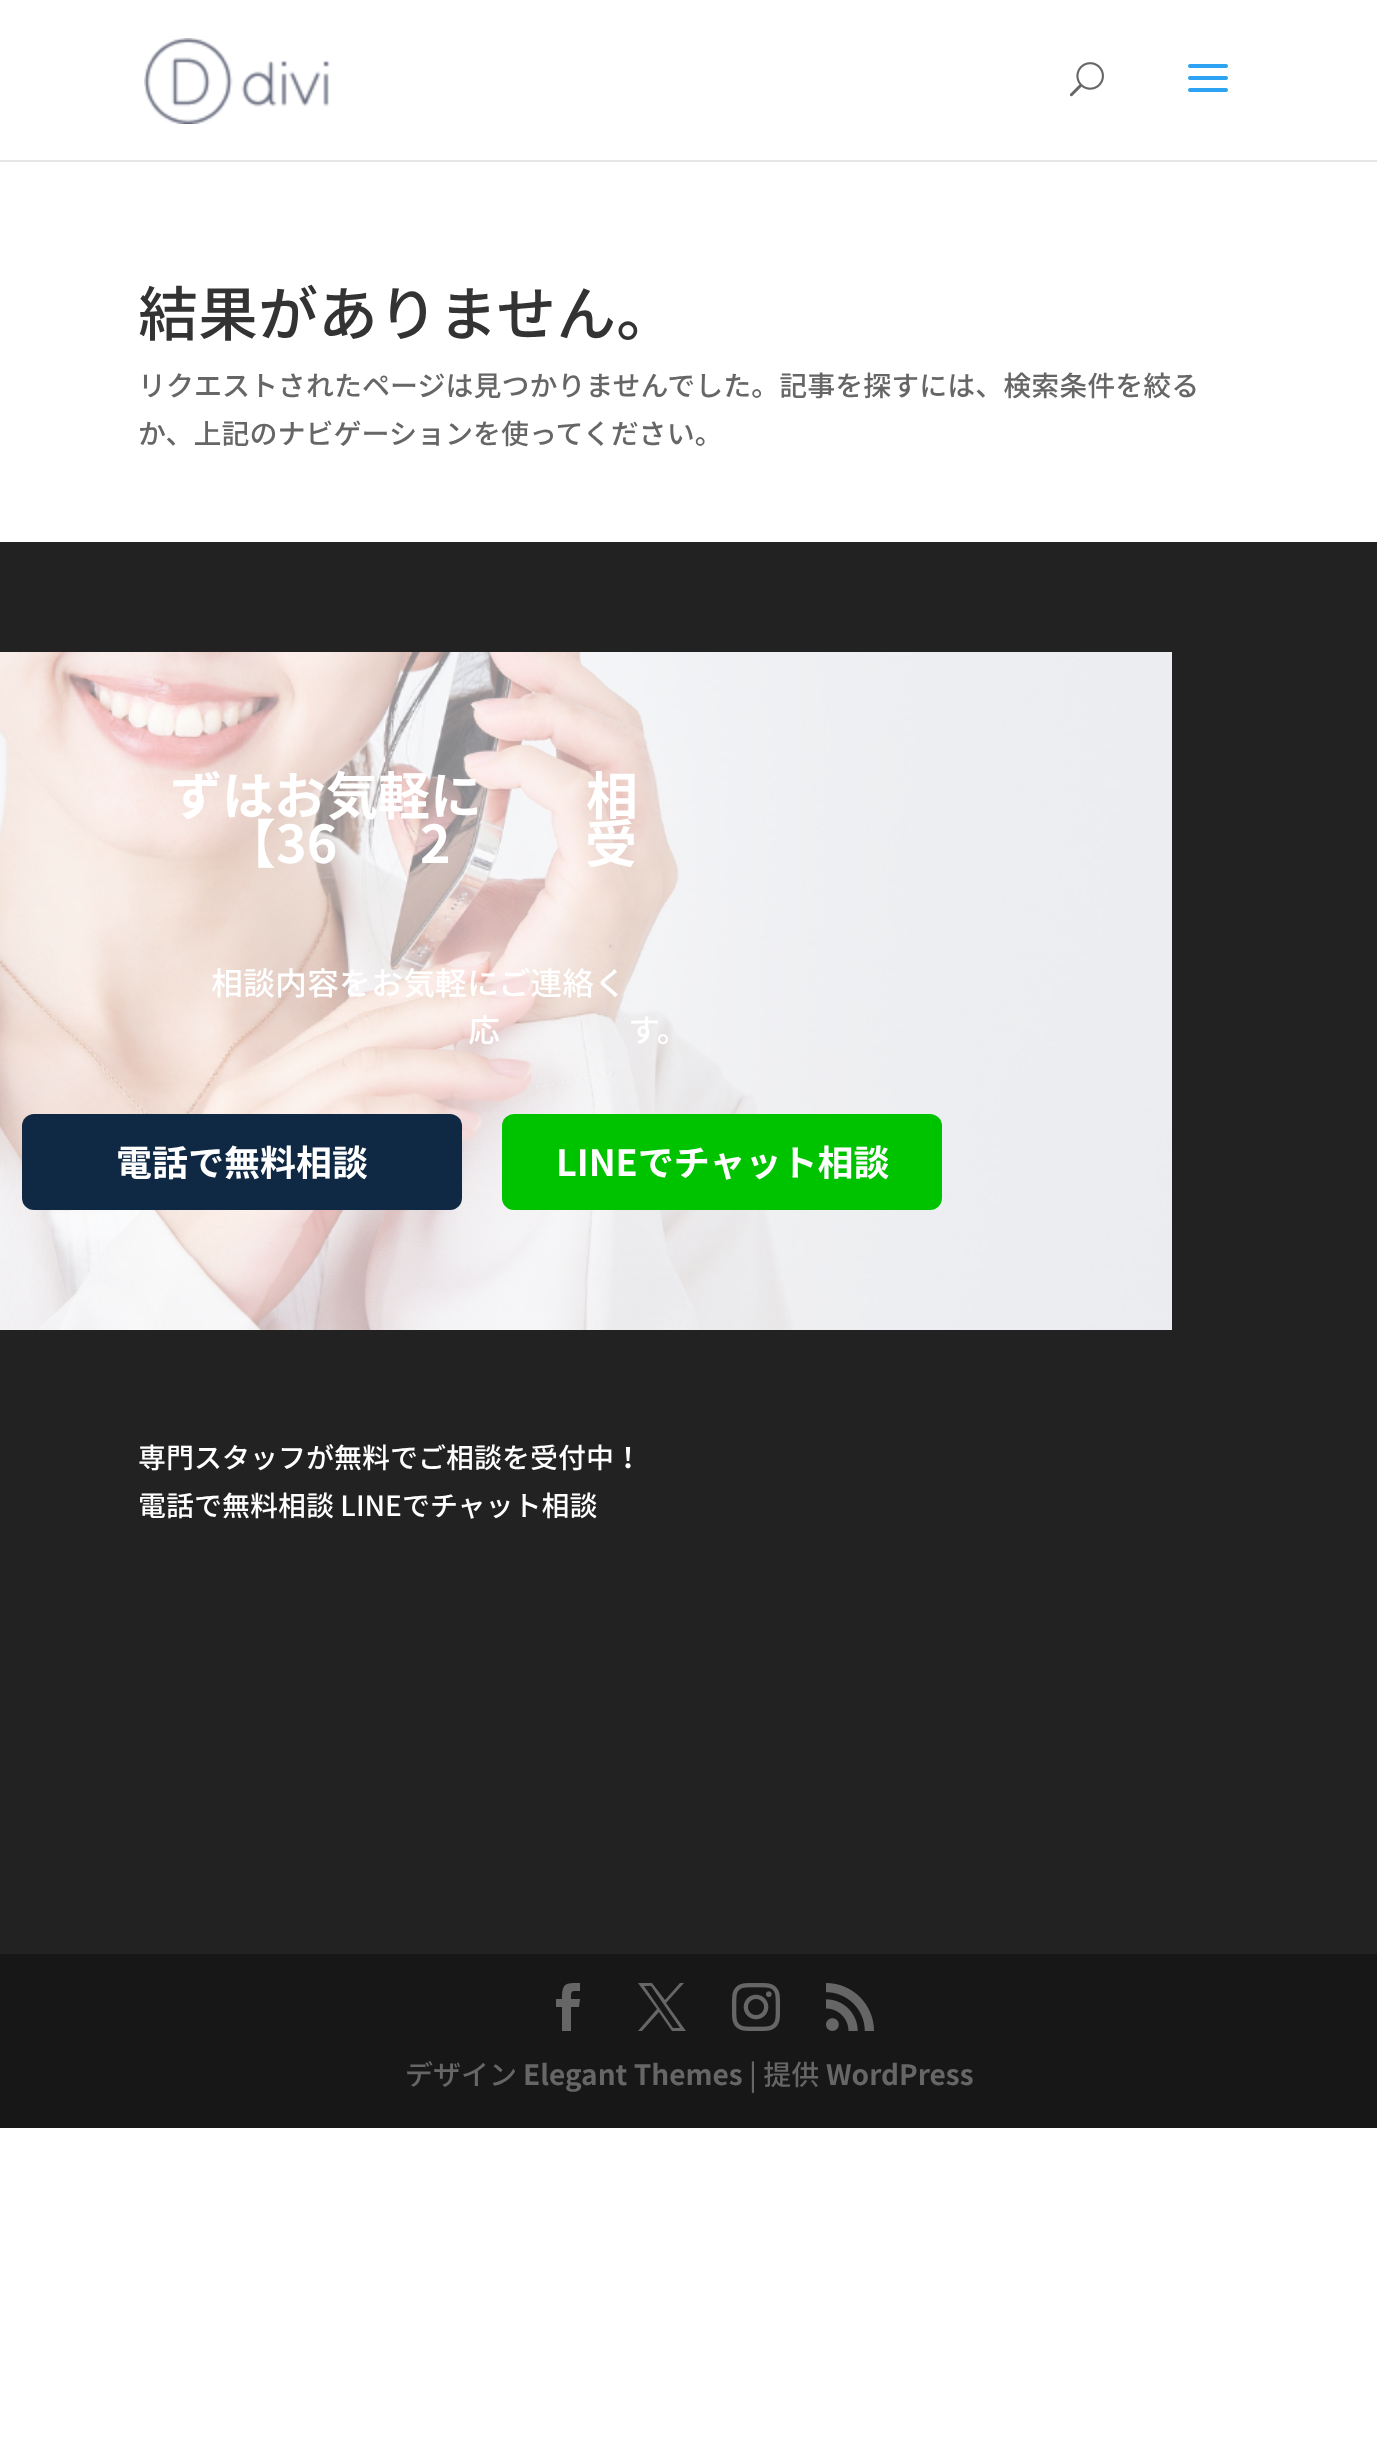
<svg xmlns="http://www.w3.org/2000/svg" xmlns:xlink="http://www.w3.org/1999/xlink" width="1377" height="2464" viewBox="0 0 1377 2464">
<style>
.cls-1{font:500 60px Noto Sans JP;fill:#333333}
.cls-2{font:500 28px Noto Sans JP;fill:#666666}
.cls-3{font:bold 52px Noto Sans JP;fill:#ffffff}
.cls-4{font:500 32px Noto Sans JP;fill:#ffffff}
.cls-5{font:bold 36px Noto Sans JP;fill:#ffffff}
.cls-6{font:500 28px Noto Sans JP;fill:#ffffff}
.cls-7{font:bold 28px Noto Sans JP;fill:#666666}
</style>
<rect width="100%" height="100%" fill="#ffffff"/>
<rect fill="#e6e6e6" x="0" y="160" width="1377" height="2"/>
<image xlink:href="image0.png" x="144" y="38" width="186" height="86"/>
<image xlink:href="image1.png" x="1069" y="62" width="35" height="35"/>
<image xlink:href="image2.png" x="1188" y="64" width="40" height="28"/>
<rect fill="#222222" x="0" y="542" width="1377" height="1412"/>
<image xlink:href="image3.png" x="0" y="652" width="1172" height="678"/>
<rect fill="#0f2944" x="22" y="1114" width="440" height="96" rx="12"/>
<rect fill="#00c300" x="502" y="1114" width="440" height="96" rx="12"/>
<rect fill="#171717" x="0" y="1954" width="1377" height="174"/>
<path fill="#666666" d="M562 2031H571V2007H579L580 1999H571C571 1990 571 1991 580 1991V1983C565 1983 562 1983 562 1999H556V2007H562Z"/>
<path fill="#666666" d="M638 1983L657 2009L638 2031H642L659 2012L672 2031H686L666 2003L684 1983H680L665 2000L652 1983ZM644 1986H651L680 2028H673Z"/>
<image xlink:href="image4.png" x="732" y="1983" width="48" height="48"/>
<image xlink:href="image5.png" x="826" y="1983" width="48" height="48"/>
<text class="cls-1" x="138" y="336">結果がありません。</text>
<text class="cls-2"><tspan x="138" y="396">リクエストされたページは見つかりませんでした。記事を探すには、検索条件を絞る</tspan><tspan x="138" y="444">か、上記のナビゲーションを使ってください。</tspan></text>
<text class="cls-3" x="170" y="815">ずはお気軽に</text>
<text class="cls-3" x="586" y="815">相</text>
<text class="cls-3" x="224" y="863">【36</text>
<text class="cls-3" x="420" y="863">2</text>
<text class="cls-3" x="585" y="863">受</text>
<text class="cls-4" x="211" y="995">相談内容をお気軽にご連絡く</text>
<text class="cls-4" x="468" y="1042">応</text>
<text class="cls-4" x="628" y="1042">す。</text>
<text class="cls-5" x="116" y="1176">電話で無料相談</text>
<text class="cls-5" x="556" y="1176">LINEでチャット相談</text>
<text class="cls-6"><tspan x="138" y="1468">専門スタッフが無料でご相談を受付中！</tspan><tspan x="138" y="1516">電話で無料相談 LINEでチャット相談</tspan></text>
<text class="cls-2" x="405" y="2085">デザイン</text>
<text class="cls-7" x="523" y="2085">Elegant Themes</text>
<text class="cls-2" x="749" y="2085">| 提供</text>
<text class="cls-7" x="826" y="2085">WordPress</text>
</svg>
